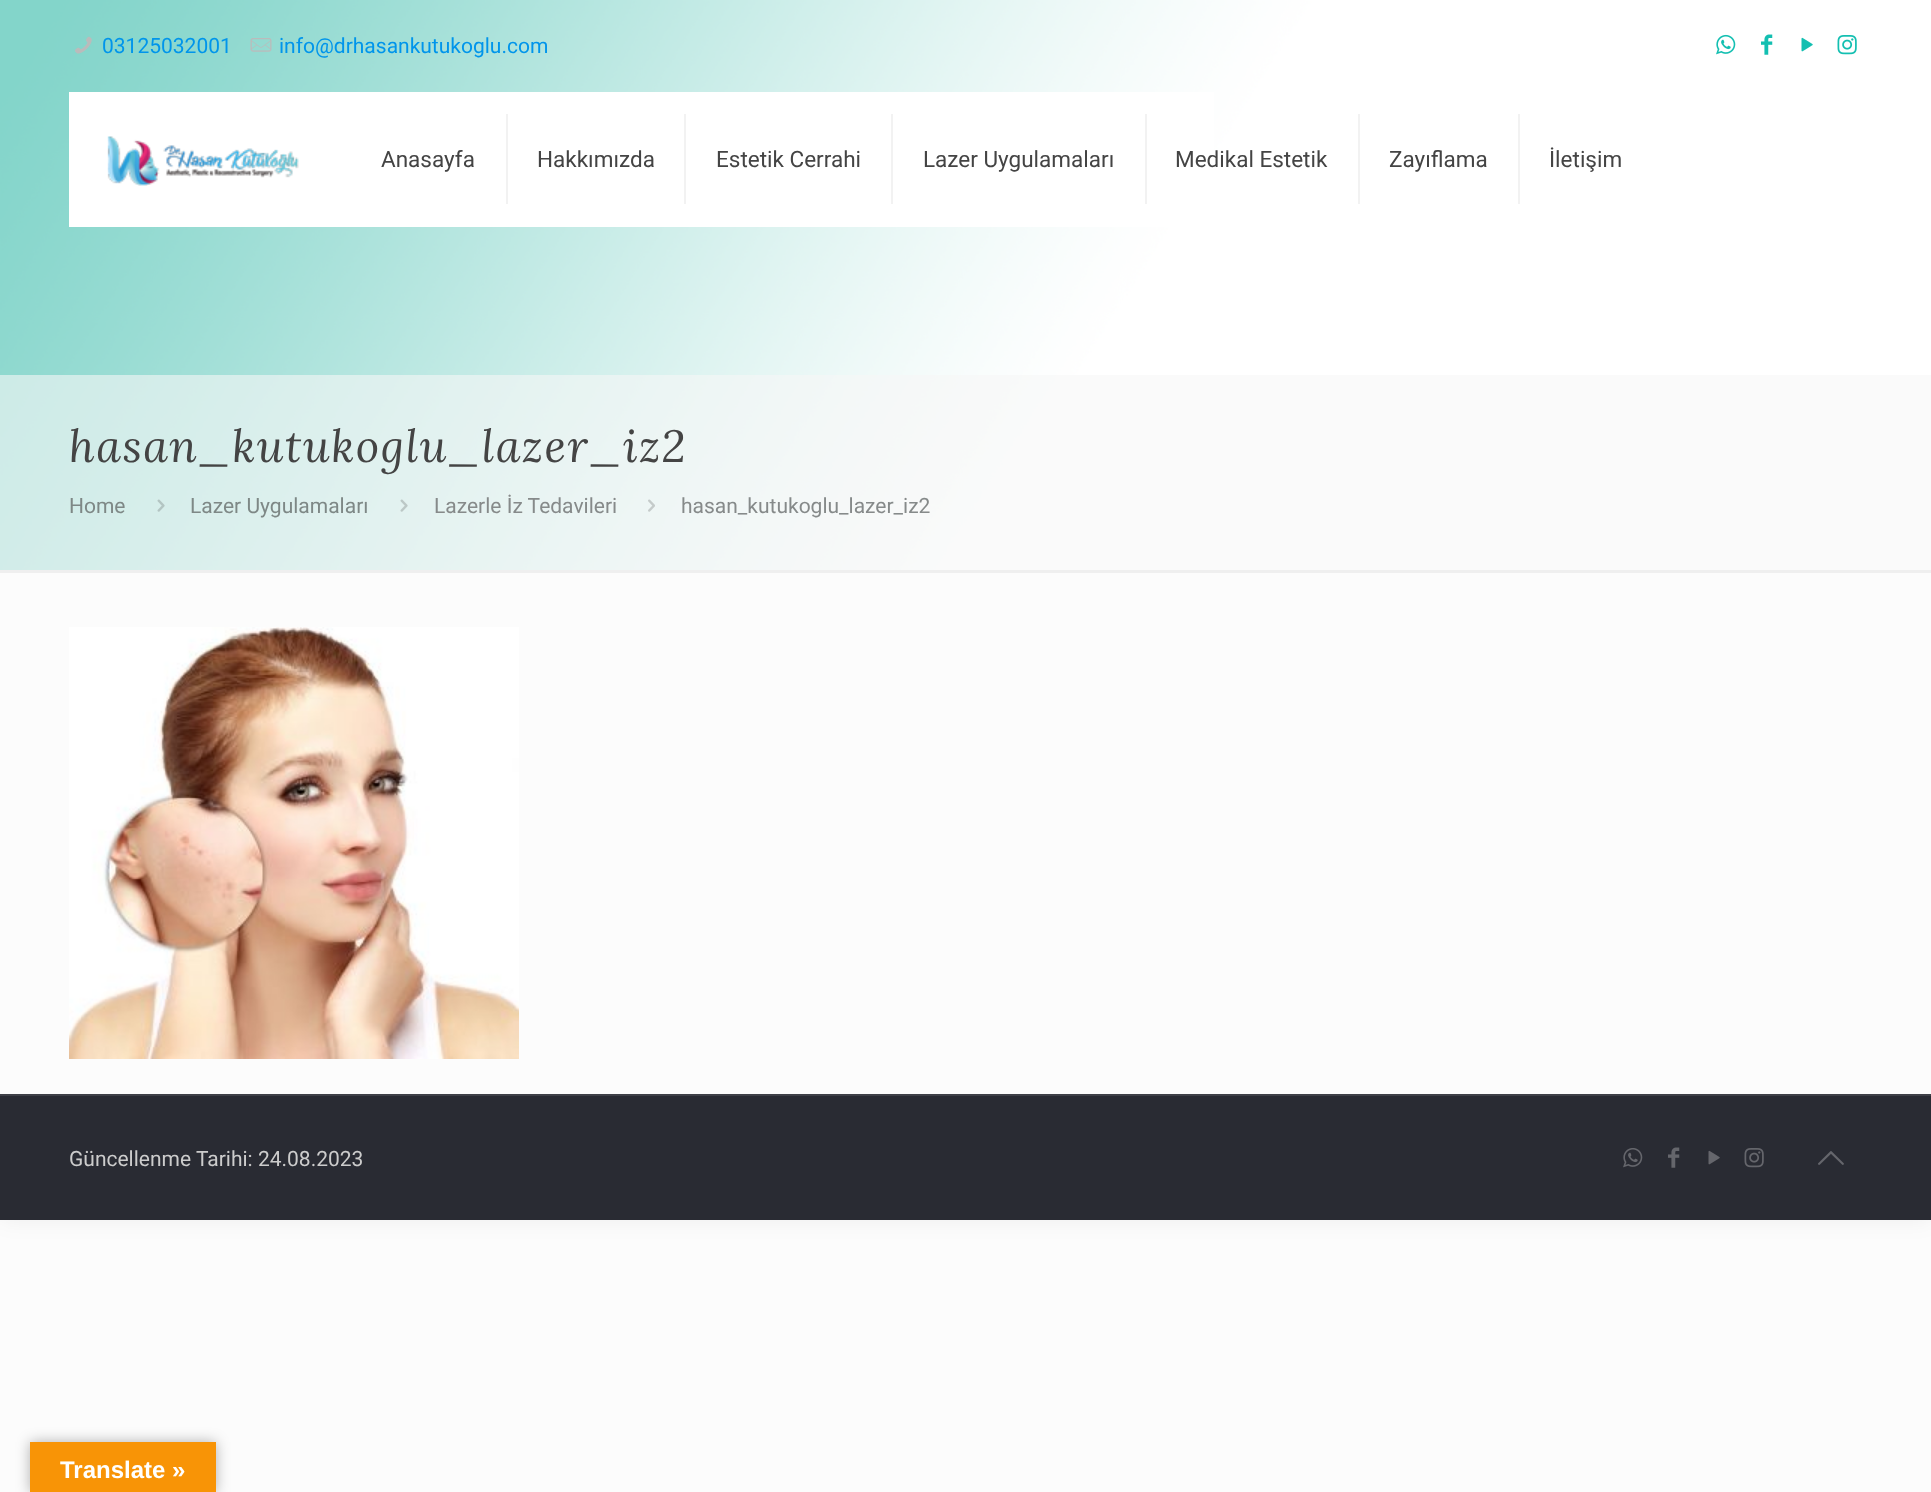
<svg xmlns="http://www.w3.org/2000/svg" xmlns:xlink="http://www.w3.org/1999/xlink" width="1931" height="1492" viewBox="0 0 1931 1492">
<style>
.cls-1{font:21px Roboto;fill:#0095eb}
.cls-2{font:22.5px Roboto;fill:#444444}
.cls-3{font:italic 45px Lora;letter-spacing:1.5px;fill:#444444}
.cls-4{font:21px Roboto;fill:#7e8886}
.cls-5{font:21px Roboto;fill:#868a8a}
.cls-6{font:21px Roboto;fill:#cccccc}
.cls-7{font:bold 24px Liberation Sans;fill:#ffffff}
</style>
<rect width="100%" height="100%" fill="#fcfcfc"/>
<rect fill="#000000" fill-opacity="0.06" filter="blur(11px)" x="0" y="0" width="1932" height="1220"/>
<rect fill="#fcfcfc" x="0" y="573" width="1931" height="521"/>
<image xlink:href="image0.png" x="0" y="0" width="1931" height="570"/>
<image xlink:href="image1.png" x="75" y="36" width="17" height="18"/>
<image xlink:href="image2.png" x="250" y="38" width="22" height="14"/>
<image xlink:href="image3.png" x="1716" y="34" width="20" height="21"/>
<image xlink:href="image4.png" x="1761" y="34" width="12" height="21"/>
<image xlink:href="image5.png" x="1801" y="37" width="12" height="15"/>
<image xlink:href="image6.png" x="1837" y="35" width="20" height="20"/>
<rect fill="#ffffff" x="69" y="92" width="1145" height="135"/>
<image xlink:href="image7.png" x="107" y="136" width="192" height="50"/>
<rect fill="#f2f2f2" x="506" y="114" width="2" height="90"/>
<rect fill="#f2f2f2" x="684" y="114" width="2" height="90"/>
<rect fill="#f2f2f2" x="891" y="114" width="2" height="90"/>
<rect fill="#f2f2f2" x="1145" y="114" width="2" height="90"/>
<rect fill="#f2f2f2" x="1358" y="114" width="2" height="90"/>
<rect fill="#f2f2f2" x="1518" y="114" width="2" height="90"/>
<rect fill="#f7f7f7" fill-opacity="0.6" x="0" y="375" width="1931" height="195"/>
<image xlink:href="image8.png" x="157" y="499" width="8" height="13"/>
<image xlink:href="image9.png" x="400" y="499" width="8" height="13"/>
<image xlink:href="image10.png" x="648" y="499" width="7" height="13"/>
<rect fill="#efefef" x="0" y="570" width="1931" height="3"/>
<image xlink:href="image11.png" x="69" y="627" width="450" height="432"/>
<rect fill="#292b33" x="0" y="1096" width="1931" height="124"/>
<rect fill="#3e4047" x="0" y="1094" width="1931" height="2"/>
<image xlink:href="image12.png" x="1623" y="1148" width="20" height="20"/>
<image xlink:href="image13.png" x="1668" y="1147" width="12" height="21"/>
<image xlink:href="image14.png" x="1708" y="1150" width="12" height="15"/>
<image xlink:href="image15.png" x="1744" y="1148" width="20" height="20"/>
<image xlink:href="image16.png" x="1818" y="1151" width="26" height="14"/>
<rect fill="#000000" fill-opacity="0.3" filter="blur(7px)" x="30" y="1442" width="186" height="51"/>
<rect fill="#f89406" x="30" y="1442" width="186" height="50"/>
<text class="cls-1" x="102" y="53">03125032001</text>
<text class="cls-1" x="279" y="53">info@drhasankutukoglu.com</text>
<text class="cls-2" x="381" y="167">Anasayfa</text>
<text class="cls-2" x="537" y="167">Hakkımızda</text>
<text class="cls-2" x="716" y="167">Estetik Cerrahi</text>
<text class="cls-2" x="923" y="167">Lazer Uygulamaları</text>
<text class="cls-2" x="1175" y="167">Medikal Estetik</text>
<text class="cls-2" x="1389" y="167">Zayıflama</text>
<text class="cls-2" x="1549" y="167">İletişim</text>
<text class="cls-3" x="69" y="462">hasan_kutukoglu_lazer_iz2</text>
<text class="cls-4" x="69" y="513">Home</text>
<text class="cls-4" x="190" y="513">Lazer Uygulamaları</text>
<text class="cls-5" x="434" y="513">Lazerle İz Tedavileri</text>
<text class="cls-5" x="681" y="513">hasan_kutukoglu_lazer_iz2</text>
<text class="cls-6" x="69" y="1166">Güncellenme Tarihi: 24.08.2023</text>
<text class="cls-7" x="60" y="1478">Translate »</text>
</svg>
